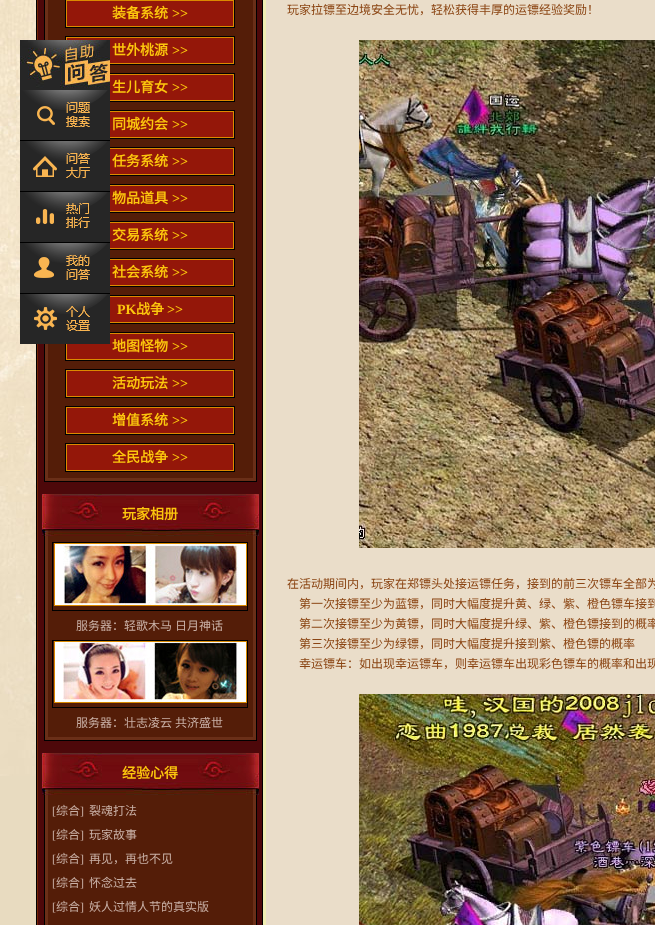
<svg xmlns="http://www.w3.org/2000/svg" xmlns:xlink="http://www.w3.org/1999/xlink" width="655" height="925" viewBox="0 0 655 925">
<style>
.cls-1{font:bold 14px Noto Sans CJK SC;fill:#fcc70d}
.cls-2{font:bold 14px Liberation Serif;fill:#fcc70d}
.cls-3{font:12px Noto Sans CJK SC;fill:#c9b0a6}
.cls-4{font:12px Liberation Serif;fill:#c9b0a6}
.cls-5{font:12px Noto Sans CJK SC;fill:#8b4513}
</style>
<rect width="100%" height="100%" fill="#e8dbc0"/>
<image xlink:href="image0.png" x="0" y="0" width="36" height="776"/>
<rect fill="#742405" x="37" y="0" width="1" height="925"/>
<rect fill="none" stroke="#000000" x="36.5" y="-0.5" width="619" height="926"/>
<rect fill="#4d080a" x="38" y="0" width="224" height="925"/>
<rect fill="#6a2f18" x="45" y="0" width="211" height="481"/>
<rect fill="#000000" x="256" y="0" width="1" height="482"/>
<rect fill="#000000" x="44" y="481" width="213" height="1"/>
<rect fill="#000000" x="44" y="0" width="1" height="482"/>
<rect fill="#541d08" x="48" y="0" width="205" height="478"/>
<rect fill="#dc8a00" stroke="#000000" x="65.5" y="-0.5" width="169" height="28"/>
<rect fill="#941709" x="67" y="1" width="166" height="25"/>
<rect fill="#dc8a00" stroke="#000000" x="65.5" y="36.5" width="169" height="28"/>
<rect fill="#941709" x="67" y="38" width="166" height="25"/>
<rect fill="#dc8a00" x="110" y="74" width="124" height="27"/>
<rect fill="none" stroke="#000000" x="65.5" y="73.5" width="169" height="28"/>
<rect fill="#941709" x="110" y="75" width="123" height="25"/>
<rect fill="#dc8a00" x="110" y="111" width="124" height="27"/>
<rect fill="none" stroke="#000000" x="65.5" y="110.5" width="169" height="28"/>
<rect fill="#941709" x="110" y="112" width="123" height="25"/>
<rect fill="#dc8a00" x="110" y="148" width="124" height="27"/>
<rect fill="none" stroke="#000000" x="65.5" y="147.5" width="169" height="28"/>
<rect fill="#941709" x="110" y="149" width="123" height="25"/>
<rect fill="#dc8a00" x="110" y="185" width="124" height="27"/>
<rect fill="none" stroke="#000000" x="65.5" y="184.5" width="169" height="28"/>
<rect fill="#941709" x="110" y="186" width="123" height="25"/>
<rect fill="#dc8a00" x="110" y="222" width="124" height="27"/>
<rect fill="none" stroke="#000000" x="65.5" y="221.5" width="169" height="28"/>
<rect fill="#941709" x="110" y="223" width="123" height="25"/>
<rect fill="#dc8a00" x="110" y="259" width="124" height="27"/>
<rect fill="none" stroke="#000000" x="65.5" y="258.5" width="169" height="28"/>
<rect fill="#941709" x="110" y="260" width="123" height="25"/>
<rect fill="#dc8a00" x="110" y="296" width="124" height="27"/>
<rect fill="none" stroke="#000000" x="65.5" y="295.5" width="169" height="28"/>
<rect fill="#941709" x="110" y="297" width="123" height="25"/>
<rect fill="#dc8a00" stroke="#000000" x="65.5" y="332.5" width="169" height="28"/>
<rect fill="#941709" x="67" y="334" width="166" height="25"/>
<rect fill="#dc8a00" stroke="#000000" x="65.5" y="369.5" width="169" height="28"/>
<rect fill="#941709" x="67" y="371" width="166" height="25"/>
<rect fill="#dc8a00" stroke="#000000" x="65.5" y="406.5" width="169" height="28"/>
<rect fill="#941709" x="67" y="408" width="166" height="25"/>
<rect fill="#dc8a00" stroke="#000000" x="65.5" y="443.5" width="169" height="28"/>
<rect fill="#941709" x="67" y="445" width="166" height="25"/>
<image xlink:href="image1.png" x="42" y="494" width="217" height="42"/>
<rect fill="#6a2f18" x="45" y="536" width="211" height="204"/>
<rect fill="#000000" x="256" y="536" width="1" height="205"/>
<rect fill="#000000" x="44" y="740" width="213" height="1"/>
<rect fill="#000000" x="44" y="536" width="1" height="205"/>
<rect fill="#541d08" x="48" y="536" width="205" height="201"/>
<rect fill="none" stroke="#000000" x="52.5" y="542.5" width="195" height="68"/>
<rect fill="none" stroke="#d98900" x="54.5" y="543.5" width="192" height="62"/>
<image xlink:href="image2.png" x="55" y="544" width="191" height="61"/>
<rect fill="none" stroke="#000000" x="52.5" y="640.5" width="195" height="67"/>
<rect fill="none" stroke="#d98900" x="54.5" y="641.5" width="192" height="61"/>
<image xlink:href="image3.png" x="55" y="642" width="191" height="60"/>
<image xlink:href="image1.png" x="42" y="753" width="217" height="42"/>
<rect fill="#6a2f18" x="45" y="795" width="211" height="130"/>
<rect fill="#000000" x="256" y="795" width="1" height="130"/>
<rect fill="#000000" x="44" y="795" width="1" height="130"/>
<rect fill="#541d08" x="48" y="795" width="205" height="130"/>
<rect fill="#f0eeb3" x="263" y="0" width="3" height="925"/>
<rect fill="#000000" x="262" y="0" width="1" height="925"/>
<rect fill="#eaddc9" x="266" y="0" width="389" height="925"/>
<image xlink:href="image4.png" x="359" y="40" width="296" height="508"/>
<image xlink:href="image5.png" x="359" y="694" width="296" height="231"/>
<rect fill="#000000" x="20" y="140" width="90" height="154"/>
<image xlink:href="image6.png" x="20" y="40" width="90" height="50"/>
<image xlink:href="image7.png" x="20" y="90" width="90" height="50"/>
<image xlink:href="image8.png" x="20" y="141" width="90" height="50"/>
<image xlink:href="image9.png" x="20" y="192" width="90" height="50"/>
<image xlink:href="image10.png" x="20" y="243" width="90" height="50"/>
<image xlink:href="image11.png" x="20" y="294" width="90" height="50"/>
<text class="cls-1" x="112" y="18">装备系统</text>
<text class="cls-2" x="172" y="18">&gt;&gt;</text>
<text class="cls-1" x="112" y="55">世外桃源</text>
<text class="cls-2" x="172" y="55">&gt;&gt;</text>
<text class="cls-1" x="112" y="92">生儿育女</text>
<text class="cls-2" x="172" y="92">&gt;&gt;</text>
<text class="cls-1" x="112" y="129">同城约会</text>
<text class="cls-2" x="172" y="129">&gt;&gt;</text>
<text class="cls-1" x="112" y="166">任务系统</text>
<text class="cls-2" x="172" y="166">&gt;&gt;</text>
<text class="cls-1" x="112" y="203">物品道具</text>
<text class="cls-2" x="172" y="203">&gt;&gt;</text>
<text class="cls-1" x="112" y="240">交易系统</text>
<text class="cls-2" x="172" y="240">&gt;&gt;</text>
<text class="cls-1" x="112" y="277">社会系统</text>
<text class="cls-2" x="172" y="277">&gt;&gt;</text>
<text class="cls-2" x="117" y="314">PK</text>
<text class="cls-1" x="136" y="314">战争</text>
<text class="cls-2" x="167" y="314">&gt;&gt;</text>
<text class="cls-1" x="112" y="351">地图怪物</text>
<text class="cls-2" x="172" y="351">&gt;&gt;</text>
<text class="cls-1" x="112" y="388">活动玩法</text>
<text class="cls-2" x="172" y="388">&gt;&gt;</text>
<text class="cls-1" x="112" y="425">增值系统</text>
<text class="cls-2" x="172" y="425">&gt;&gt;</text>
<text class="cls-1" x="112" y="462">全民战争</text>
<text class="cls-2" x="172" y="462">&gt;&gt;</text>
<text class="cls-1" x="122" y="519">玩家相册</text>
<text class="cls-3" x="76" y="630">服务器：轻歌木马</text>
<text class="cls-3" x="175" y="630">日月神话</text>
<text class="cls-3" x="76" y="727">服务器：壮志凌云</text>
<text class="cls-3" x="175" y="727">共济盛世</text>
<text class="cls-1" x="122" y="778">经验心得</text>
<text class="cls-4" x="52" y="815">[</text>
<text class="cls-3" x="56" y="815">综合</text>
<text class="cls-4" x="80" y="815">]</text>
<text class="cls-3" x="89" y="815">裂魂打法</text>
<text class="cls-4" x="52" y="839">[</text>
<text class="cls-3" x="56" y="839">综合</text>
<text class="cls-4" x="80" y="839">]</text>
<text class="cls-3" x="89" y="839">玩家故事</text>
<text class="cls-4" x="52" y="863">[</text>
<text class="cls-3" x="56" y="863">综合</text>
<text class="cls-4" x="80" y="863">]</text>
<text class="cls-3" x="89" y="863">再见，再也不见</text>
<text class="cls-4" x="52" y="887">[</text>
<text class="cls-3" x="56" y="887">综合</text>
<text class="cls-4" x="80" y="887">]</text>
<text class="cls-3" x="89" y="887">怀念过去</text>
<text class="cls-4" x="52" y="911">[</text>
<text class="cls-3" x="56" y="911">综合</text>
<text class="cls-4" x="80" y="911">]</text>
<text class="cls-3" x="89" y="911">妖人过情人节的真实版</text>
<text class="cls-5" x="287" y="14">玩家拉镖至边境安全无忧，轻松获得丰厚的运镖经验奖励！</text>
<text class="cls-5" x="287" y="588">在活动期间内，玩家在郑镖头处接运镖任务，接到的前三次镖车全部为</text>
<text class="cls-5"><tspan x="299" y="608">第一次接镖至少为蓝镖，同时大幅度提升黄、绿、紫、橙色镖车接到</tspan><tspan x="299" y="628">第二次接镖至少为黄镖，同时大幅度提升绿、紫、橙色镖接到的概率</tspan><tspan x="299" y="648">第三次接镖至少为绿镖，同时大幅度提升接到紫、橙色镖的概率</tspan><tspan x="299" y="668">幸运镖车：如出现幸运镖车，则幸运镖车出现彩色镖车的概率和出现</tspan></text>
</svg>
